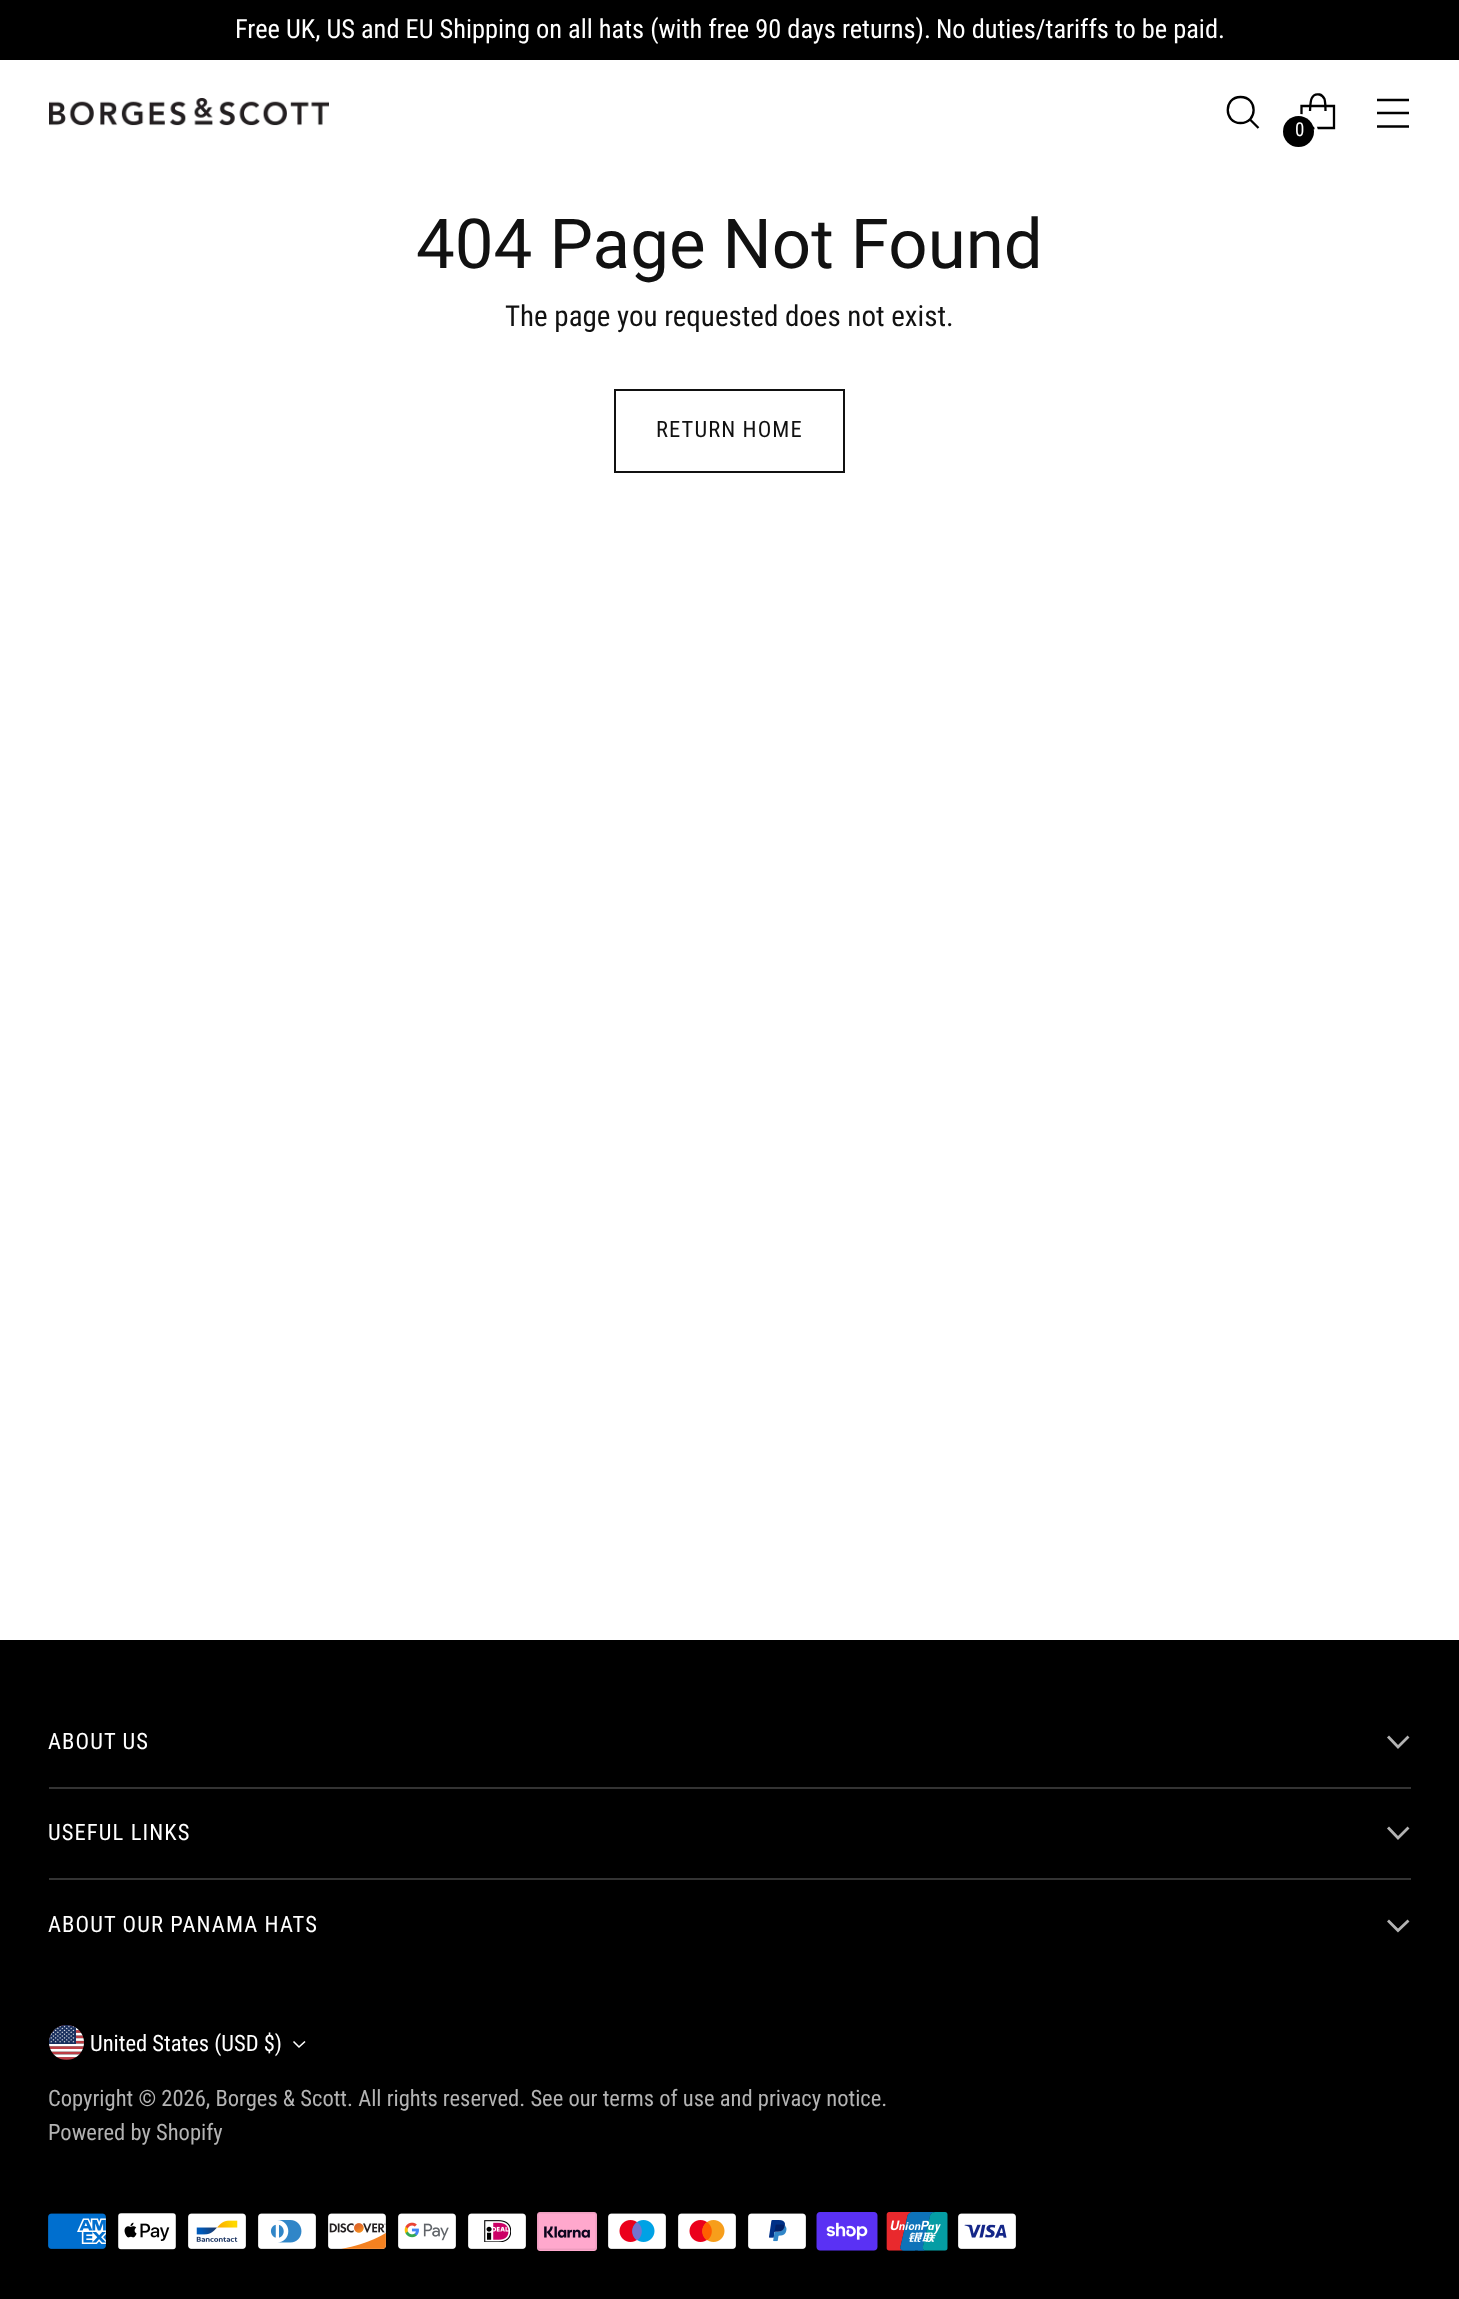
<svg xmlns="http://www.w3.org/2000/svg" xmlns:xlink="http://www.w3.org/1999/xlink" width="1459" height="2299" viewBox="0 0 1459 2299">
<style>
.cls-1{font:26.4px Roboto Condensed;fill:#ffffff}
.cls-2{font:19px Roboto Condensed;fill:#ffffff}
.cls-3{font:69px Roboto;fill:#111111}
.cls-4{font:29px Roboto Condensed;fill:#111111}
.cls-5{font:22.55px Roboto Condensed;letter-spacing:1.1px;fill:#111111}
.cls-6{font:22.55px Roboto Condensed;letter-spacing:1.1px;fill:#ffffff}
.cls-7{font:22.55px Roboto Condensed;fill:#ffffff}
.cls-8{font:22.55px Roboto Condensed;fill:#b3b3b3}
</style>
<rect width="100%" height="100%" fill="#ffffff"/>
<rect fill="#000000" x="0" y="0" width="1459" height="60"/>
<image xlink:href="image0.png" x="49" y="98" width="280" height="28"/>
<path fill="none" stroke="#000000" stroke-width="2.3" stroke-linecap="round" d="M1240.5 123C1258 123 1258 97 1240.5 97C1223.5 97 1223.5 123 1240.5 123Z"/>
<path fill="none" stroke="#000000" stroke-width="2.3" d="M1250 119.5L1258.5 128"/>
<path fill="none" stroke="#000000" stroke-width="2.3" d="M1377 113H1409M1377 100H1409M1377 126.5H1409"/>
<path fill="none" stroke="#000000" stroke-width="2.3" stroke-linejoin="bevel" d="M1325.5 111C1325.5 107 1325.5 103 1324.5 99C1323.5 97 1322 95 1319.5 94.5C1309.5 92.5 1310.5 105 1310 111"/>
<path fill="none" stroke="#000000" stroke-width="2.3" d="M1334 128V106H1301.5V128Z"/>
<circle fill="none" stroke="#ffffff" stroke-width="3" cx="1299.5" cy="132.5" r="17"/>
<circle fill="#000000" cx="1298.5" cy="131.5" r="15.5"/>
<rect fill="none" stroke="#111111" stroke-width="2" x="615" y="390" width="229" height="82"/>
<rect fill="#000000" x="0" y="1640" width="1459" height="659"/>
<rect fill="#333333" x="49" y="1787" width="1362" height="2"/>
<path fill="none" stroke="#b3b3b3" stroke-width="2.8" d="M1388 1736.5L1398 1747L1408.5 1736.5"/>
<rect fill="#333333" x="49" y="1878" width="1362" height="2"/>
<path fill="none" stroke="#b3b3b3" stroke-width="2.8" d="M1388 1827.5L1398 1838L1408.5 1827.5"/>
<path fill="none" stroke="#b3b3b3" stroke-width="2.8" d="M1388 1920.5L1398 1930.5L1408.5 1920.5"/>
<image xlink:href="image1.png" x="49" y="2025" width="35" height="35"/>
<path fill="none" stroke="#ffffff" stroke-width="1.6" d="M293.5 2041.5L299 2047L305 2041.5"/>
<image xlink:href="image2.png" x="48" y="2213" width="58" height="36"/>
<image xlink:href="image3.png" x="118" y="2213" width="58" height="37"/>
<image xlink:href="image4.png" x="188" y="2213" width="58" height="36"/>
<image xlink:href="image5.png" x="258" y="2213" width="58" height="36"/>
<image xlink:href="image6.png" x="328" y="2213" width="58" height="36"/>
<image xlink:href="image7.png" x="398" y="2213" width="58" height="36"/>
<image xlink:href="image8.png" x="468" y="2213" width="58" height="36"/>
<image xlink:href="image9.png" x="537" y="2212" width="60" height="39"/>
<image xlink:href="image10.png" x="608" y="2213" width="58" height="36"/>
<image xlink:href="image11.png" x="678" y="2213" width="58" height="36"/>
<image xlink:href="image12.png" x="748" y="2213" width="58" height="36"/>
<image xlink:href="image13.png" x="816" y="2212" width="62" height="39"/>
<image xlink:href="image14.png" x="886" y="2212" width="62" height="39"/>
<image xlink:href="image15.png" x="958" y="2213" width="58" height="36"/>
<text class="cls-1" x="235" y="38">Free UK, US and EU Shipping on all hats (with free 90 days returns).</text>
<text class="cls-1" x="936" y="38">No duties/tariffs to be paid.</text>
<text class="cls-2" x="1295" y="136">0</text>
<text class="cls-3" x="416" y="268">404 Page Not Found</text>
<text class="cls-4" x="505" y="326">The page you requested does not exist.</text>
<text class="cls-5" x="656" y="437">RETURN HOME</text>
<text class="cls-6" x="48" y="1749">ABOUT US</text>
<text class="cls-6" x="48" y="1840">USEFUL LINKS</text>
<text class="cls-6" x="48" y="1932">ABOUT OUR PANAMA HATS</text>
<text class="cls-7" x="90" y="2051">United States (USD $)</text>
<text class="cls-8"><tspan x="48" y="2106">Copyright © 2026, Borges &amp; Scott. All rights reserved. See our terms of use and privacy notice.</tspan><tspan x="48" y="2140">Powered by Shopify</tspan></text>
</svg>
